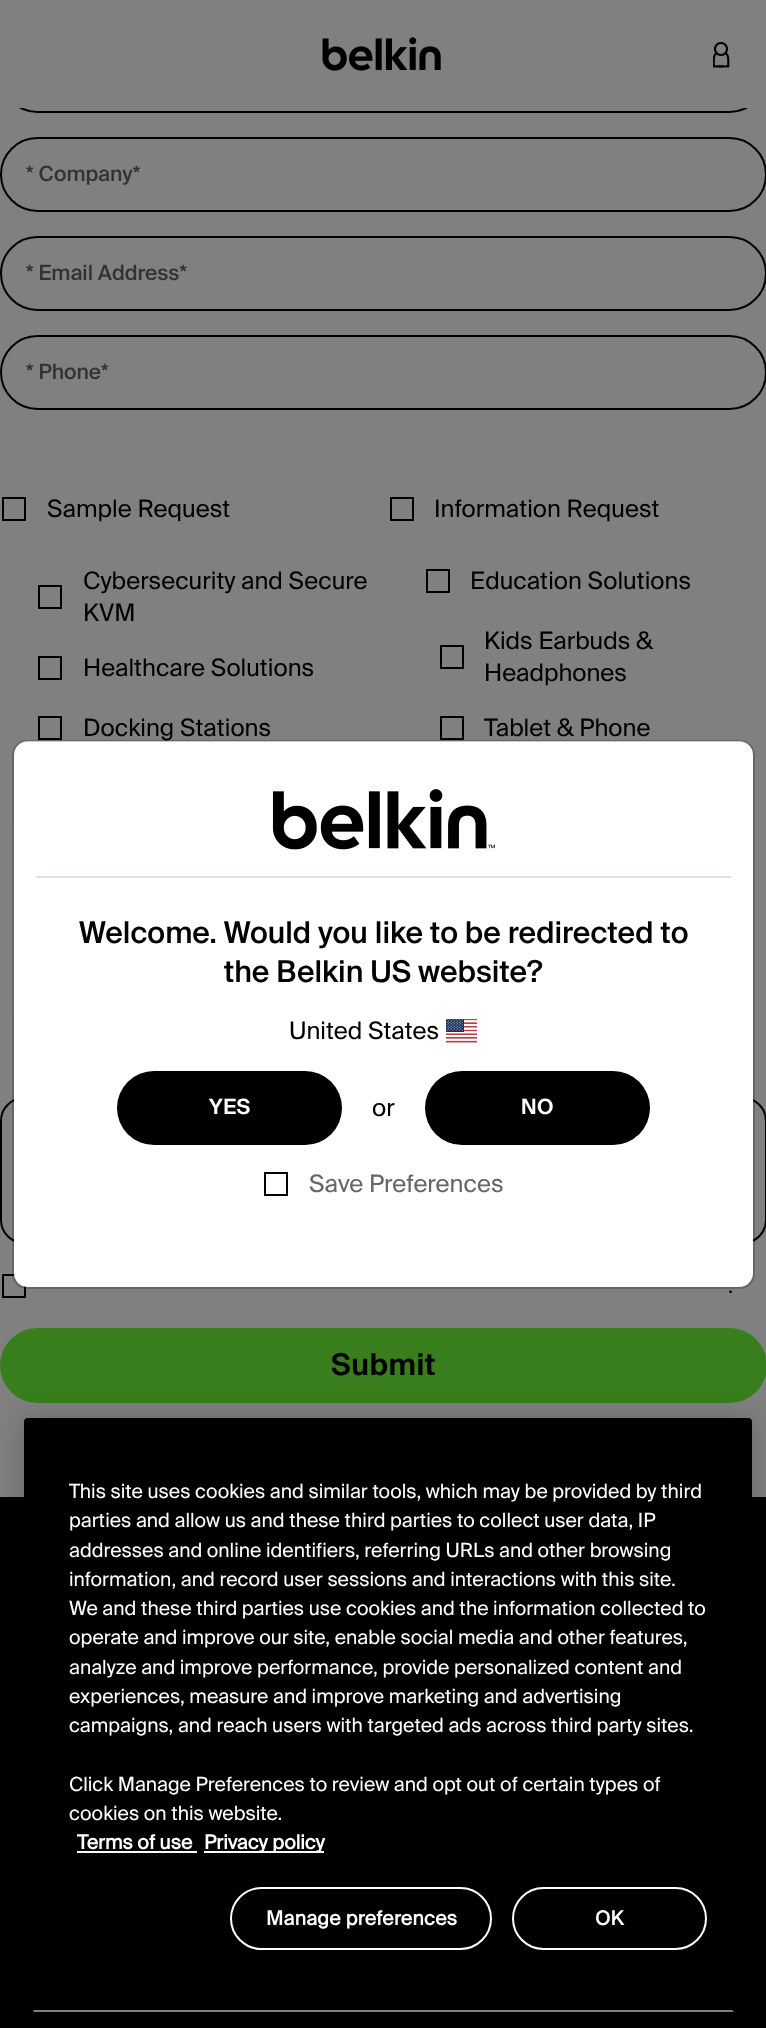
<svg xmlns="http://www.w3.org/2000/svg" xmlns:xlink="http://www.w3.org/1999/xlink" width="766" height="2028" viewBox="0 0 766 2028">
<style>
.cls-1{font:500 21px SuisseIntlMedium;fill:#333333}
.cls-2{font:24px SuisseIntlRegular;fill:#000000}
.cls-3{font:21px SuisseIntlRegular;fill:#000000}
.cls-4{font:600 30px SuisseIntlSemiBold;letter-spacing:0.5px;fill:#000000}
.cls-5{font:500 30px SuisseIntlMedium;fill:#000000}
.cls-6{font:600 21px SuisseIntlSemiBold;letter-spacing:0.5px;fill:#ffffff}
.cls-7{font:24px SuisseIntlRegular;fill:#666666}
.cls-8{font:19.5px SuisseIntlRegular;fill:#ffffff}
.cls-9{font:bold 19.5px SuisseIntlRegular;fill:#ffffff}
.cls-10{font:bold 19.5px SuisseIntlRegular;letter-spacing:0.25px;fill:#ffffff}
</style>
<rect width="100%" height="100%" fill="#808080"/>
<rect fill="none" stroke="#000000" stroke-width="2" x="1" y="39" width="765" height="73" rx="36.5"/>
<rect fill="#808080" x="0" y="38" width="766" height="70"/>
<image xlink:href="image0.png" x="322" y="37" width="119" height="34"/>
<image xlink:href="image1.png" x="713" y="42" width="17" height="26"/>
<rect fill="none" stroke="#000000" stroke-width="2" x="1" y="138" width="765" height="73" rx="36.5"/>
<rect fill="none" stroke="#000000" stroke-width="2" x="1" y="237" width="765" height="73" rx="36.5"/>
<rect fill="none" stroke="#000000" stroke-width="2" x="1" y="336" width="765" height="73" rx="36.5"/>
<rect fill="none" stroke="#000000" stroke-width="2" x="3" y="498" width="22" height="22"/>
<rect fill="none" stroke="#000000" stroke-width="2" x="391" y="498" width="22" height="22"/>
<rect fill="none" stroke="#000000" stroke-width="2" x="39" y="586" width="22" height="22"/>
<rect fill="none" stroke="#000000" stroke-width="2" x="39" y="657" width="22" height="22"/>
<rect fill="none" stroke="#000000" stroke-width="2" x="39" y="717" width="22" height="22"/>
<rect fill="none" stroke="#000000" stroke-width="2" x="427" y="570" width="22" height="22"/>
<rect fill="none" stroke="#000000" stroke-width="2" x="441" y="646" width="22" height="22"/>
<rect fill="none" stroke="#000000" stroke-width="2" x="441" y="717" width="22" height="22"/>
<rect fill="none" stroke="#000000" stroke-width="2" x="1" y="1098" width="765" height="145" rx="23"/>
<rect fill="none" stroke="#000000" stroke-width="2" x="3" y="1275" width="22" height="22"/>
<rect fill="#387e1c" x="0" y="1328" width="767" height="75" rx="37.5"/>
<rect fill="#ffffff" x="14" y="741" width="739" height="546" rx="14"/>
<rect fill="#000000" x="0" y="1497" width="766" height="531"/>
<path fill="#808080" d="M734 2012H33L34 2010H732Z"/>
<rect fill="#000000" fill-opacity="0.2" filter="blur(13.5px)" x="24" y="1418" width="728" height="562" rx="4"/>
<rect fill="#000000" x="24" y="1418" width="728" height="562" rx="4"/>
<rect fill="#ffffff" x="77" y="1851" width="120" height="2"/>
<rect fill="#ffffff" x="204" y="1851" width="120" height="2"/>
<rect fill="none" stroke="#ffffff" stroke-width="2" x="231" y="1888" width="260" height="61" rx="30.5"/>
<rect fill="none" stroke="#ffffff" stroke-width="2" x="513" y="1888" width="193" height="61" rx="30.5"/>
<text class="cls-1" x="26" y="181">* Company*</text>
<text class="cls-1" x="26" y="280">* Email Address*</text>
<text class="cls-1" x="26" y="379">* Phone*</text>
<text class="cls-2" x="47" y="517">Sample Request</text>
<text class="cls-2" x="434" y="517">Information Request</text>
<text class="cls-2"><tspan x="83" y="589">Cybersecurity and Secure</tspan><tspan x="83" y="621">KVM</tspan></text>
<text class="cls-2" x="83" y="676">Healthcare Solutions</text>
<text class="cls-2" x="83" y="736">Docking Stations</text>
<text class="cls-2" x="470" y="589">Education Solutions</text>
<text class="cls-2"><tspan x="484" y="649">Kids Earbuds &amp;</tspan><tspan x="484" y="681">Headphones</tspan></text>
<text class="cls-2" x="484" y="736">Tablet &amp; Phone</text>
<text class="cls-3" x="728" y="1293">.</text>
<text class="cls-4" x="331" y="1375">Submit</text>
<rect fill="none" stroke="#000000" stroke-opacity="0.2" stroke-width="2" x="13" y="741" width="741" height="547" rx="14"/>
<rect fill="#dee2e6" x="36" y="876" width="695" height="2"/>
<image xlink:href="image2.png" x="272" y="789" width="223" height="61"/>
<text class="cls-5" x="79" y="943">Welcome. Would you like to be redirected to</text>
<text class="cls-5" x="224" y="982">the Belkin US website?</text>
<text class="cls-2" x="289" y="1039">United States</text>
<image xlink:href="image3.png" x="446" y="1019" width="31" height="24"/>
<rect fill="#000000" x="117" y="1071" width="225" height="74" rx="37"/>
<text class="cls-6" x="209" y="1114">YES</text>
<text class="cls-2" x="372" y="1116">or</text>
<rect fill="#000000" x="425" y="1071" width="225" height="74" rx="37"/>
<text class="cls-6" x="521" y="1114">NO</text>
<rect fill="none" stroke="#000000" stroke-width="2" x="265" y="1173" width="22" height="22"/>
<text class="cls-7" x="309" y="1192">Save Preferences</text>
<text class="cls-8"><tspan x="69" y="1498">This site uses cookies and similar tools, which may be provided by third</tspan><tspan x="69" y="1527">parties and allow us and these third parties to collect user data, IP</tspan><tspan x="69" y="1557">addresses and online identifiers, referring URLs and other browsing</tspan><tspan x="69" y="1586">information, and record user sessions and interactions with this site.</tspan><tspan x="69" y="1615">We and these third parties use cookies and the information collected to</tspan><tspan x="69" y="1644">operate and improve our site, enable social media and other features,</tspan><tspan x="69" y="1674">analyze and improve performance, provide personalized content and</tspan><tspan x="69" y="1703">experiences, measure and improve marketing and advertising</tspan><tspan x="69" y="1732">campaigns, and reach users with targeted ads across third party sites.</tspan></text>
<text class="cls-8"><tspan x="69" y="1791">Click Manage Preferences to review and opt out of certain types of</tspan><tspan x="69" y="1820">cookies on this website.</tspan></text>
<text class="cls-9" x="77" y="1849">Terms of use</text>
<text class="cls-9" x="204" y="1849">Privacy policy</text>
<text class="cls-10" x="266" y="1925">Manage preferences</text>
<text class="cls-10" x="595" y="1925">OK</text>
</svg>
